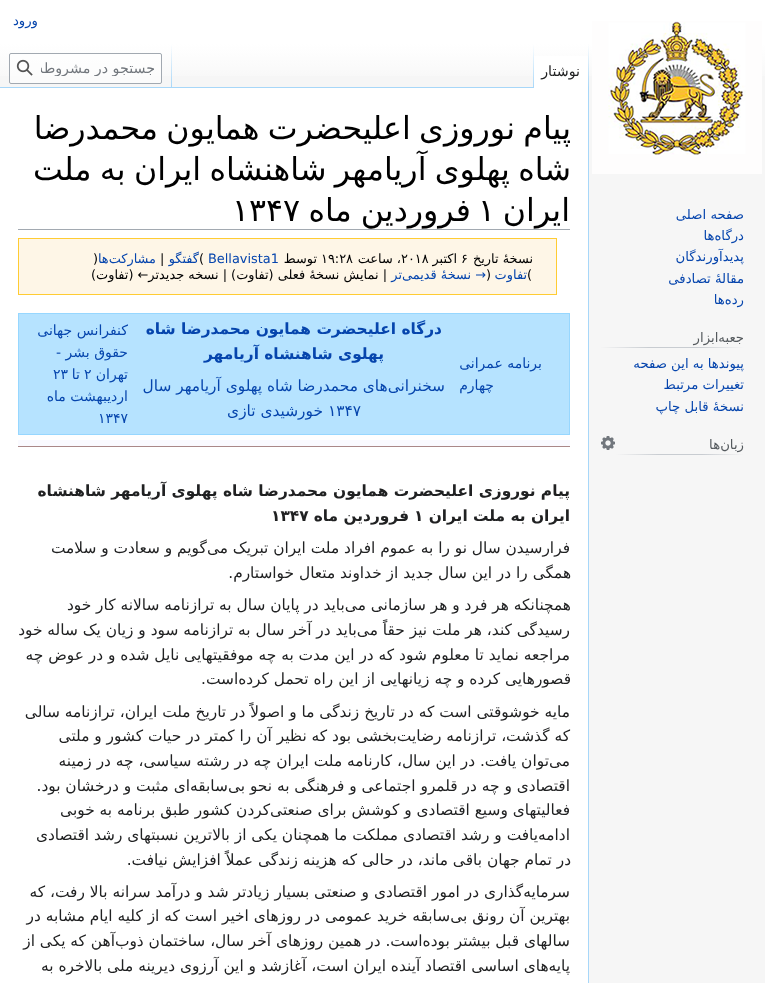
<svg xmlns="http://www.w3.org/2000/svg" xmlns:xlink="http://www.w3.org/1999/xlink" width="765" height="983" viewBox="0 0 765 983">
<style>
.cls-1{font:13.25px DejaVu Sans;direction:rtl;fill:#0645ad}
.cls-2{font:14.25px DejaVu Sans;direction:rtl;fill:#202122}
.cls-3{font:14.25px DejaVu Sans;direction:rtl;fill:#72777d}
.cls-4{font:13.25px DejaVu Sans;direction:rtl;fill:#54595d}
.cls-5{font:31.7px DejaVu Sans;direction:rtl;fill:#000000}
.cls-6{font:31.7px DejaVu Sans;fill:#000000}
.cls-7{font:12.9px DejaVu Sans;direction:rtl;fill:#000000}
.cls-8{font:12.9px DejaVu Sans;fill:#000000}
.cls-9{font:12.9px DejaVu Sans;fill:#0645ad}
.cls-10{font:12.9px DejaVu Sans;direction:rtl;fill:#0645ad}
.cls-11{font:14px DejaVu Sans;direction:rtl;fill:#0645ad}
.cls-12{font:bold 15.4px DejaVu Sans;direction:rtl;fill:#0645ad}
.cls-13{font:15.4px DejaVu Sans;direction:rtl;fill:#0645ad}
.cls-14{font:15.4px DejaVu Sans;fill:#0645ad}
.cls-15{font:14px DejaVu Sans;fill:#0645ad}
.cls-16{font:bold 15.4px DejaVu Sans;direction:rtl;fill:#202122}
.cls-17{font:bold 15.4px DejaVu Sans;fill:#202122}
.cls-18{font:15.4px DejaVu Sans;direction:rtl;fill:#202122}
</style>
<defs>
<linearGradient id="g1" gradientUnits="userSpaceOnUse" x1="383" y1="0" x2="383" y2="88"><stop offset="0.5" stop-color="#ffffff"/><stop offset="1" stop-color="#f6f6f6"/></linearGradient>
<linearGradient id="g2" gradientUnits="userSpaceOnUse" x1="589" y1="44" x2="589" y2="88"><stop offset="0" stop-color="#a7d7f9" stop-opacity="0"/><stop offset="1" stop-color="#a7d7f9"/></linearGradient>
<linearGradient id="g3" gradientUnits="userSpaceOnUse" x1="534" y1="44" x2="534" y2="88"><stop offset="0" stop-color="#ffffff"/><stop offset="1" stop-color="#a7d7f9"/></linearGradient>
<linearGradient id="g4" gradientUnits="userSpaceOnUse" x1="172" y1="44" x2="172" y2="88"><stop offset="0" stop-color="#a7d7f9" stop-opacity="0"/><stop offset="1" stop-color="#a7d7f9"/></linearGradient>
<linearGradient id="g5" gradientUnits="userSpaceOnUse" x1="744" y1="348" x2="600" y2="348"><stop offset="0" stop-color="#f6f6f6"/><stop offset="0.33" stop-color="#c8ccd1"/><stop offset="0.66" stop-color="#c8ccd1"/><stop offset="1" stop-color="#f6f6f6"/></linearGradient>
<linearGradient id="g6" gradientUnits="userSpaceOnUse" x1="744" y1="455" x2="616" y2="455"><stop offset="0" stop-color="#f6f6f6"/><stop offset="0.33" stop-color="#c8ccd1"/><stop offset="0.66" stop-color="#c8ccd1"/><stop offset="1" stop-color="#f6f6f6"/></linearGradient>
<clipPath id="clip1"><rect x="41" y="60" width="114" height="16"/></clipPath>
</defs>
<rect width="100%" height="100%" fill="#f6f6f6"/>
<rect fill="url(#g1)" x="0" y="0" width="765" height="76"/>
<rect fill="#a7d7f9" x="588" y="87" width="1" height="896"/>
<rect fill="url(#g2)" x="588" y="44" width="1" height="44"/>
<rect fill="#ffffff" x="534" y="56" width="54" height="32"/>
<rect fill="url(#g3)" x="533" y="44" width="1" height="44"/>
<rect fill="#a7d7f9" x="0" y="87" width="533" height="1"/>
<rect fill="url(#g4)" x="171" y="44" width="1" height="44"/>
<rect fill="#ffffff" fill-opacity="0.5" stroke="#a2a9b1" x="9.5" y="53.5" width="152" height="30" rx="1.5"/>
<image xlink:href="image0.png" x="16" y="59" width="17" height="17"/>
<image xlink:href="image1.png" x="592" y="21" width="170" height="153"/>
<rect fill="url(#g5)" x="600" y="347" width="144" height="1"/>
<rect fill="url(#g6)" x="616" y="454" width="128" height="1"/>
<image xlink:href="image2.png" x="601" y="436" width="14" height="14"/>
<rect fill="#ffffff" x="0" y="88" width="588" height="895"/>
<rect fill="#a2a9b1" x="18" y="229" width="552" height="1"/>
<rect fill="#fef6e7" stroke="#ffcc33" x="18.5" y="238.5" width="538" height="56"/>
<rect fill="#b6e3ff" stroke="#97d7ff" x="18.5" y="313.5" width="551" height="121"/>
<rect fill="#fafaff" x="18" y="440" width="552" height="6"/>
<rect fill="#aa8888" x="18" y="446" width="552" height="1"/>
<text class="cls-1" x="38" y="25">ورود</text>
<text class="cls-2" x="580" y="76">نوشتار</text>
<g clip-path="url(#clip1)">
<text class="cls-3" x="155" y="73">جستجو در مشروطه</text>
</g>
<text class="cls-1"><tspan x="744" y="219">صفحه اصلی</tspan><tspan x="744" y="240">درگاه‌ها</tspan><tspan x="744" y="261">پدیدآورندگان</tspan><tspan x="744" y="283">مقالهٔ تصادفی</tspan><tspan x="744" y="304">رده‌ها</tspan></text>
<text class="cls-4" x="744" y="342">جعبه‌ابزار</text>
<text class="cls-1"><tspan x="744" y="368">پیوندها به این صفحه</tspan><tspan x="744" y="389">تغییرات مرتبط</tspan><tspan x="744" y="411">نسخهٔ قابل چاپ</tspan></text>
<text class="cls-4" x="744" y="449">زبان‌ها</text>
<text class="cls-5"><tspan x="571" y="139" word-spacing="-1.75">پیام نوروزی اعلیحضرت همایون محمدرضا</tspan><tspan x="571" y="180" word-spacing="-1.75">شاه پهلوی آریامهر شاهنشاه ایران به ملت</tspan></text>
<text class="cls-5" x="570" y="221">ایران</text>
<text class="cls-6" x="478" y="221">۱</text>
<text class="cls-5" x="471" y="221" word-spacing="-1">فروردین ماه</text>
<text class="cls-6" x="232" y="221">۱۳۴۷</text>
<text class="cls-7" x="533" y="263">نسخهٔ تاریخ </text>
<text class="cls-8" x="461" y="263">۶</text>
<text class="cls-7" x="457" y="263">اکتبر</text>
<text class="cls-8" x="401" y="263">۲۰۱۸</text>
<text class="cls-7" x="401" y="263">، ساعت</text>
<text class="cls-8" x="321" y="263">۱۹:۲۸</text>
<text class="cls-7" x="317" y="263">توسط</text>
<text class="cls-9" x="208" y="263">Bellavista1</text>
<text class="cls-8" x="199" y="263">(</text>
<text class="cls-10" x="199" y="263">گفتگو</text>
<text class="cls-8" x="160" y="263">|</text>
<text class="cls-10" x="156" y="263">مشارکت‌ها</text>
<text class="cls-8" x="93" y="263">)</text>
<text class="cls-8" x="527" y="279">(</text>
<text class="cls-10" x="527" y="279">تفاوت</text>
<text class="cls-8" x="486" y="279">)</text>
<text class="cls-10" x="486" y="279">→ نسخهٔ قدیمی‌تر</text>
<text class="cls-7" x="387" y="279">| نمایش نسخهٔ فعلی (تفاوت) | نسخه جدیدتر← (تفاوت)</text>
<text class="cls-11" x="542" y="368">برنامه عمرانی</text>
<text class="cls-11" x="494" y="390">چهارم</text>
<text class="cls-12" x="442" y="334">درگاه اعلیحضرت همایون محمدرضا شاه</text>
<text class="cls-12" x="384" y="359">پهلوی شاهنشاه آریامهر</text>
<text class="cls-13" x="445" y="391">سخنرانی‌های محمدرضا شاه پهلوی آریامهر سال</text>
<text class="cls-14" x="328" y="416">۱۳۴۷</text>
<text class="cls-13" x="323" y="416">خورشیدی تازی</text>
<text class="cls-11"><tspan x="128" y="335">کنفرانس جهانی</tspan><tspan x="128" y="357">حقوق بشر -</tspan><tspan x="128" y="379">تهران</tspan></text>
<text class="cls-15" x="84" y="379">۲</text>
<text class="cls-11" x="80" y="379">تا</text>
<text class="cls-15" x="53" y="379">۲۳</text>
<text class="cls-11" x="128" y="401">اردیبهشت ماه</text>
<text class="cls-15" x="98" y="423">۱۳۴۷</text>
<text class="cls-16"><tspan x="570" y="496">پیام نوروزی اعلیحضرت همایون محمدرضا شاه پهلوی آریامهر شاهنشاه</tspan><tspan x="570" y="521">ایران به ملت ایران</tspan></text>
<text class="cls-17" x="414" y="521">۱</text>
<text class="cls-16" x="409" y="521">فروردین ماه</text>
<text class="cls-17" x="271" y="521">۱۳۴۷</text>
<text class="cls-18" x="570" y="553">فرارسیدن سال نو را به عموم افراد ملت ایران تبریک می‌گویم و سعادت و سلامت</text>
<text class="cls-18" x="571" y="578">همگی را در این سال جدید از خداوند متعال خواستارم.</text>
<text class="cls-18" x="571" y="610">همچنانکه هر فرد و هر سازمانی می‌باید در پایان سال به ترازنامه سالانه کار خود</text>
<text class="cls-18"><tspan x="570" y="635">رسیدگی کند، هر ملت نیز حقاً می‌باید در آخر سال به ترازنامه سود و زیان یک ساله خود</tspan><tspan x="570" y="660">مراجعه نماید تا معلوم شود که در این مدت به چه موفقیتهایی نایل شده و در عوض چه</tspan></text>
<text class="cls-18" x="571" y="684">قصورهایی کرده و چه زیانهایی از این راه تحمل کرده‌است.</text>
<text class="cls-18"><tspan x="570" y="717">مایه خوشوقتی است که در تاریخ زندگی ما و اصولاً در تاریخ ملت ایران، ترازنامه سالی</tspan><tspan x="570" y="741">که گذشت، ترازنامه رضایت‌بخشی بود که نظیر آن را کمتر در حیات کشور و ملتی</tspan><tspan x="570" y="766">می‌توان یافت. در این سال، کارنامه ملت ایران چه در رشته سیاسی، چه در زمینه</tspan><tspan x="570" y="791">اقتصادی و چه در قلمرو اجتماعی و فرهنگی به نحو بی‌سابقه‌ای مثبت و درخشان بود.</tspan><tspan x="570" y="815">فعالیتهای وسیع اقتصادی و کوشش برای صنعتی‌کردن کشور طبق برنامه به خوبی</tspan><tspan x="570" y="840">ادامه‌یافت و رشد اقتصادی مملکت ما همچنان یکی از بالاترین نسبتهای رشد اقتصادی</tspan></text>
<text class="cls-18" x="571" y="865">در تمام جهان باقی ماند، در حالی که هزینه زندگی عملاً افزایش نیافت.</text>
<text class="cls-18"><tspan x="570" y="897">سرمایه‌گذاری در امور اقتصادی و صنعتی بسیار زیادتر شد و درآمد سرانه بالا رفت، که</tspan><tspan x="570" y="921">بهترین آن رونق بی‌سابقه خرید عمومی در روزهای اخیر است که از کلیه ایام مشابه در</tspan><tspan x="570" y="946">سالهای قبل بیشتر بوده‌است. در همین روزهای آخر سال، ساختمان ذوب‌آهن که یکی از</tspan><tspan x="570" y="971">پایه‌های اساسی اقتصاد آینده ایران است، آغازشد و این آرزوی دیرینه ملی بالاخره به</tspan></text>
</svg>
